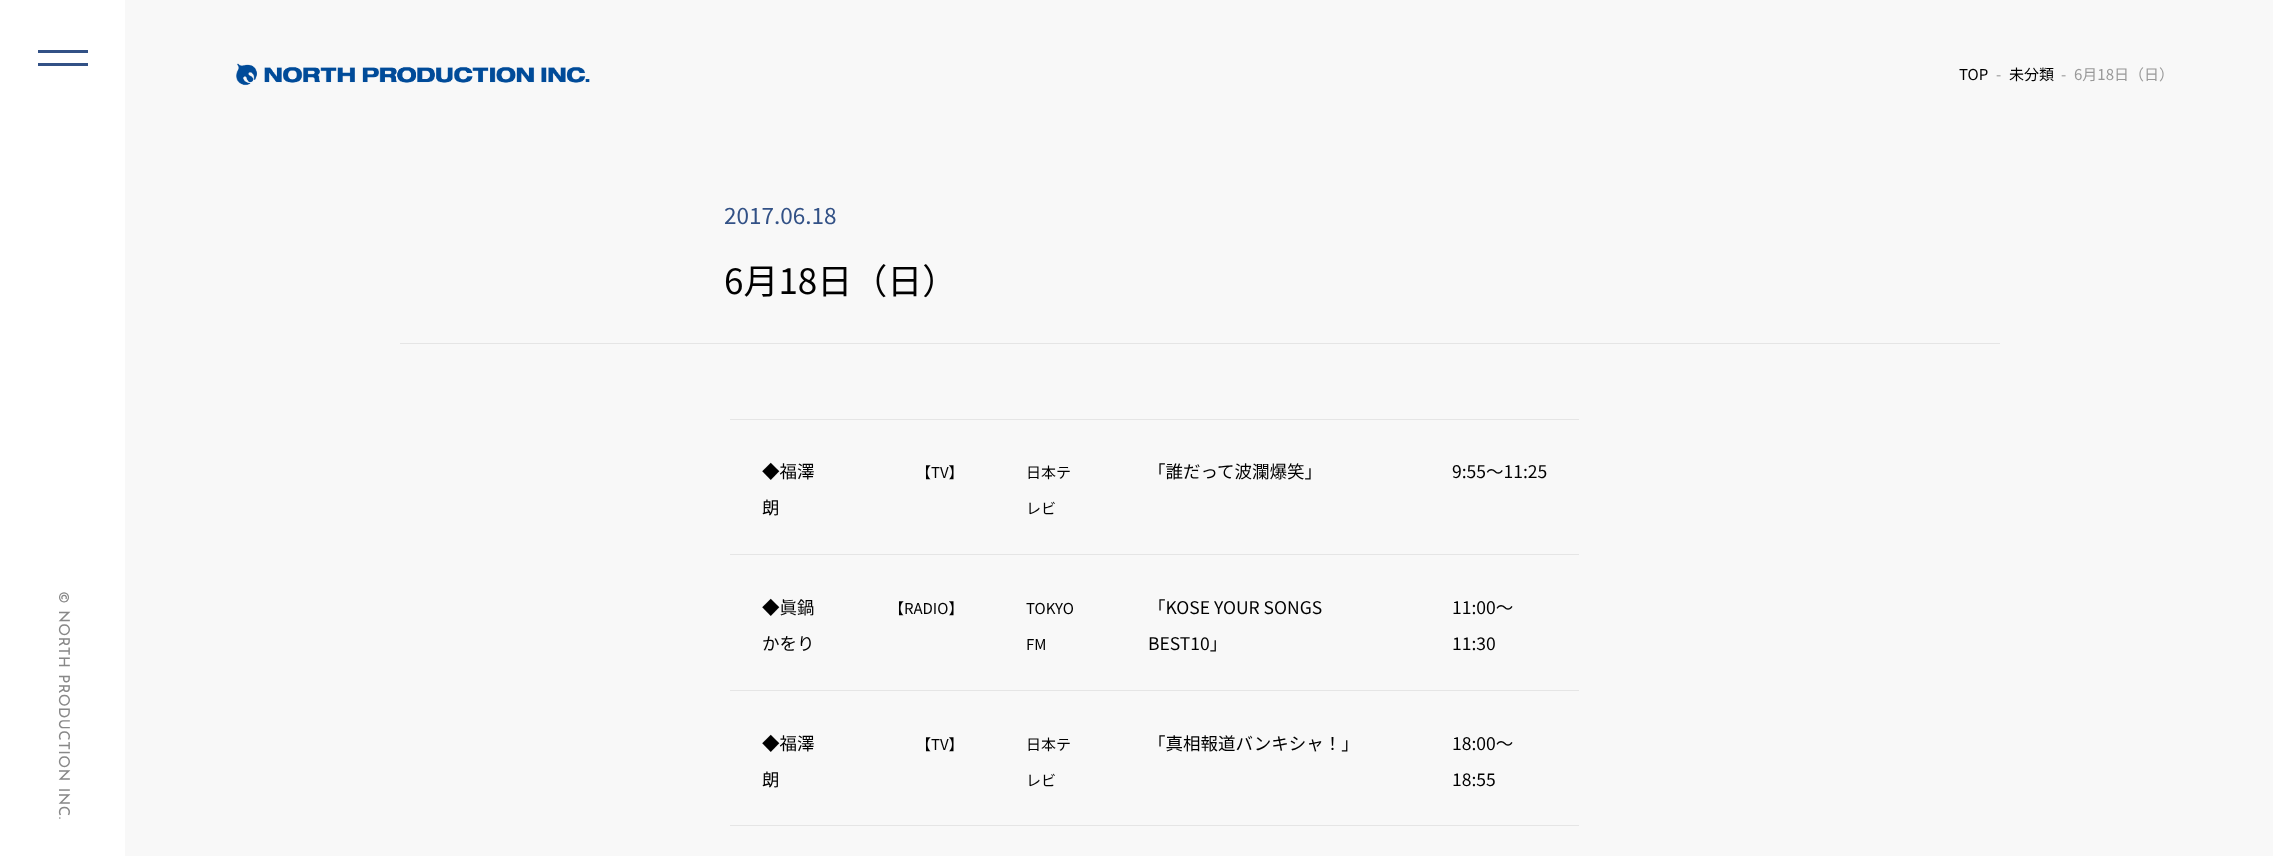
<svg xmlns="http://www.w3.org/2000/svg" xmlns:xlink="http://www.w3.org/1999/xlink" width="2273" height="856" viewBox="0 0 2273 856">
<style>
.cls-1{font:15px Noto Sans JP;fill:#000000}
.cls-2{font:15px Noto Sans JP;fill:#999999}
.cls-3{font:15px Josefin Sans;letter-spacing:0.45px;fill:#888888}
.cls-4{font:22.5px Noto Sans JP;fill:#325186}
.cls-5{font:35px Noto Sans JP;fill:#000000}
.cls-6{font:17.5px Noto Sans JP;fill:#000000}
</style>
<rect width="100%" height="100%" fill="#f8f8f8"/>
<image xlink:href="image0.png" x="236" y="63" width="354" height="23"/>
<rect fill="#ffffff" x="0" y="0" width="125" height="856"/>
<rect fill="#325186" x="38" y="50" width="50" height="3"/>
<rect fill="#325186" x="38" y="63" width="50" height="3"/>
<rect fill="#e5e5e5" x="400" y="343" width="1600" height="1"/>
<rect fill="#e5e5e5" x="730" y="419" width="849" height="1"/>
<rect fill="#e5e5e5" x="730" y="554" width="849" height="1"/>
<rect fill="#e5e5e5" x="730" y="690" width="849" height="1"/>
<rect fill="#e5e5e5" x="730" y="825" width="849" height="1"/>
<text class="cls-1" x="1959" y="80">TOP</text>
<text class="cls-2" x="1996" y="80">-</text>
<text class="cls-1" x="2009" y="80">未分類</text>
<text class="cls-2" x="2061" y="80">-</text>
<text class="cls-2" x="2074" y="80">6月18日（日）</text>
<text class="cls-3" x="59" y="591" transform="rotate(90 59 591)" word-spacing="1">© NORTH PRODUCTION INC.</text>
<text class="cls-4" x="724" y="224">2017.06.18</text>
<text class="cls-5" x="724" y="294">6月18日（日）</text>
<text class="cls-6" x="762" y="478">◆福澤</text>
<text class="cls-6" x="762" y="514">朗</text>
<text class="cls-1" x="916" y="478">【TV】</text>
<text class="cls-1" x="1026" y="478">日本テ</text>
<text class="cls-1" x="1026" y="514">レビ</text>
<text class="cls-6" x="1148" y="478">「誰だって波瀾爆笑」</text>
<text class="cls-6" x="1452" y="478">9:55～11:25</text>
<text class="cls-6" x="762" y="614">◆眞鍋</text>
<text class="cls-6" x="762" y="650">かをり</text>
<text class="cls-1" x="889" y="614">【RADIO】</text>
<text class="cls-1" x="1026" y="614">TOKYO</text>
<text class="cls-1" x="1026" y="650">FM</text>
<text class="cls-6" x="1148" y="614">「KOSE YOUR SONGS</text>
<text class="cls-6" x="1148" y="650">BEST10」</text>
<text class="cls-6" x="1452" y="614">11:00～</text>
<text class="cls-6" x="1452" y="650">11:30</text>
<text class="cls-6" x="762" y="750">◆福澤</text>
<text class="cls-6" x="762" y="786">朗</text>
<text class="cls-1" x="916" y="750">【TV】</text>
<text class="cls-1" x="1026" y="750">日本テ</text>
<text class="cls-1" x="1026" y="786">レビ</text>
<text class="cls-6" x="1148" y="750">「真相報道バンキシャ！」</text>
<text class="cls-6" x="1452" y="750">18:00～</text>
<text class="cls-6" x="1452" y="786">18:55</text>
</svg>
